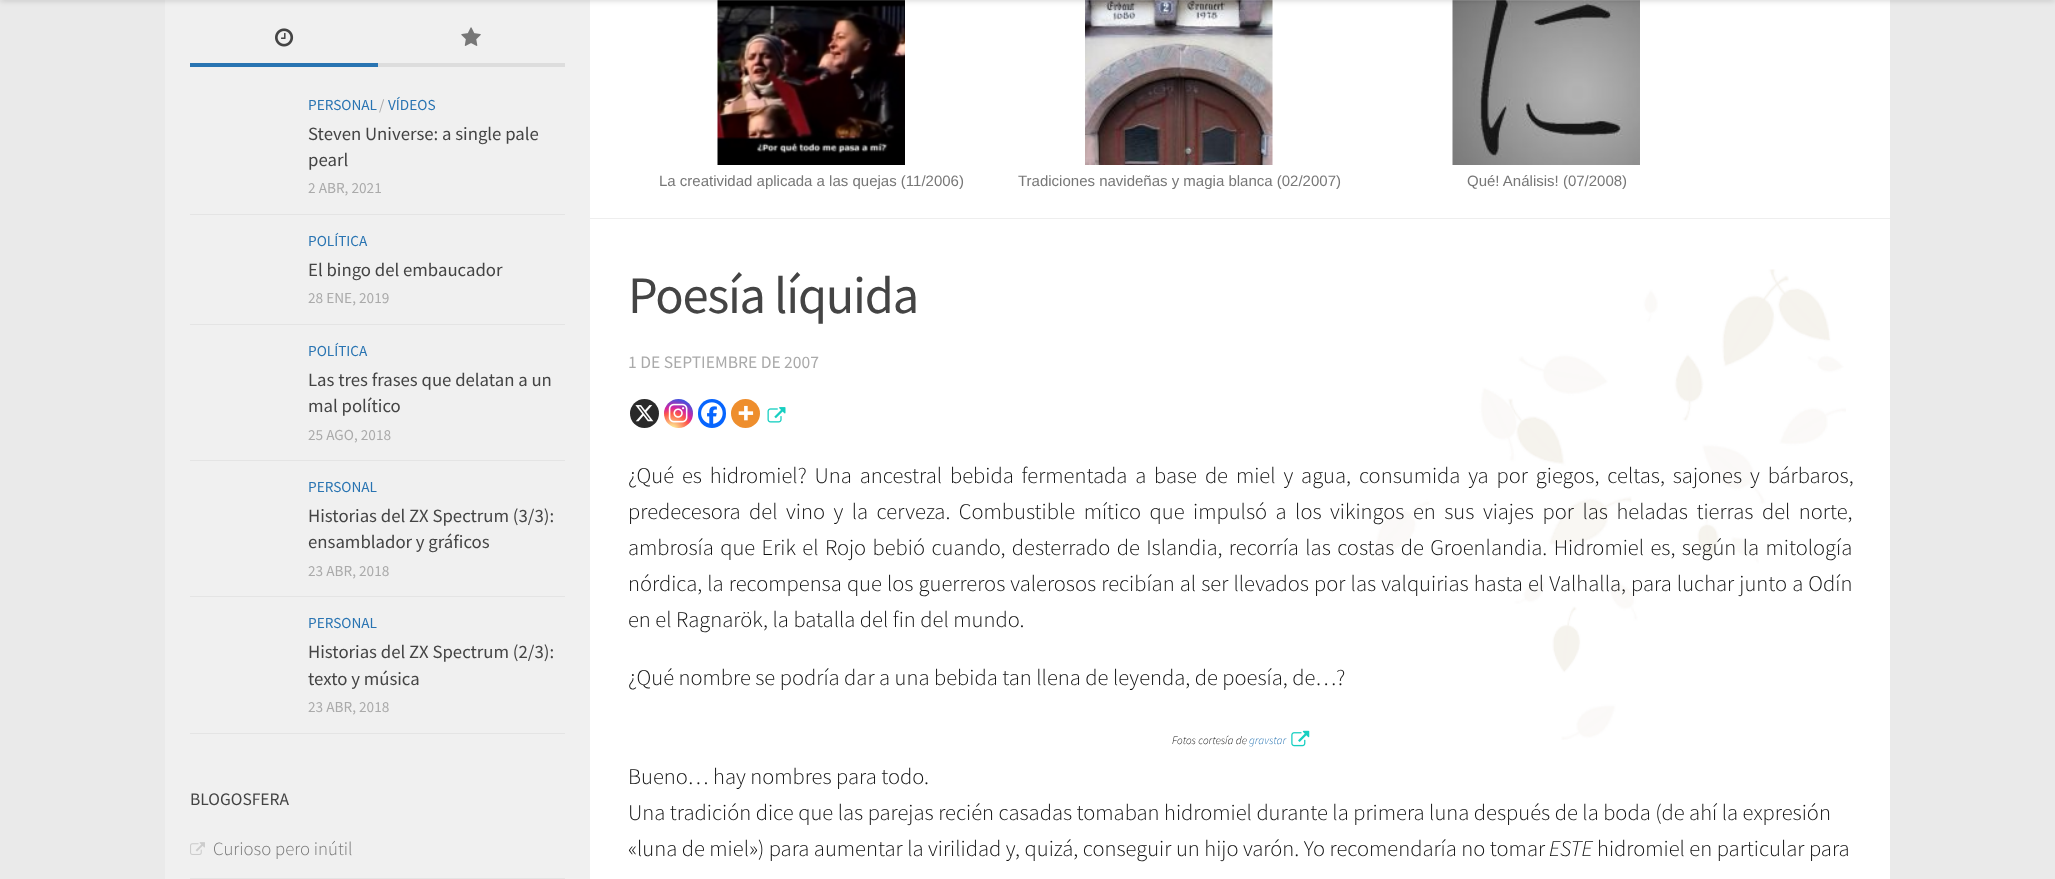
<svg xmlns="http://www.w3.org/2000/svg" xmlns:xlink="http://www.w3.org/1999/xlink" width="2055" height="879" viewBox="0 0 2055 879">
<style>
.cls-1{font:15.25px Source Sans Pro;fill:#2974b2}
.cls-2{font:15.25px Source Sans Pro;fill:#aaaaaa}
.cls-3{font:18.75px Source Sans Pro;fill:#444444}
.cls-4{font:17.5px Source Sans Pro;fill:#444444}
.cls-5{font:300 18.75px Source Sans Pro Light;fill:#777777}
.cls-6{font:15px Liberation Sans;fill:#777777}
.cls-7{font:52.5px Source Sans Pro;letter-spacing:-1.25px;fill:#444444}
.cls-8{font:17.5px Source Sans Pro;fill:#aaaaaa}
.cls-9{font:300 22.5px Source Sans Pro Light;fill:#111111}
.cls-10{font:italic 300 11.25px Source Sans Pro Light;fill:#111111}
.cls-11{font:italic 300 11.25px Source Sans Pro Light;fill:#2974b2}
.cls-12{font:italic 300 22.5px Source Sans Pro Light;fill:#111111}
</style>
<defs>
<radialGradient id="g1" gradientUnits="userSpaceOnUse" cx="672" cy="430" r="37"><stop offset="0" stop-color="#fdf497"/><stop offset="0.05" stop-color="#fdf497"/><stop offset="0.45" stop-color="#fd5949"/><stop offset="0.6" stop-color="#d6249f"/><stop offset="0.9" stop-color="#285aeb"/></radialGradient>
</defs>
<rect width="100%" height="100%" fill="#eaeaea"/>
<rect fill="#ffffff" x="590" y="0" width="1300" height="879"/>
<rect fill="#f0f0f0" x="165" y="0" width="425" height="879"/>
<image xlink:href="image3.png" x="717" y="0" width="188" height="165"/>
<image xlink:href="image4.png" x="1085" y="0" width="188" height="165"/>
<image xlink:href="image5.png" x="1452" y="0" width="188" height="165"/>
<rect fill="#ffffff" fill-opacity="0.15" x="0" y="0" width="2055" height="1"/>
<rect fill="#000000" fill-opacity="0.2" filter="blur(3px)" x="0" y="-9" width="2055" height="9"/>
<rect fill="#dddddd" x="378" y="63" width="187" height="4"/>
<rect fill="#2974b2" x="190" y="63" width="188" height="4"/>
<image xlink:href="image0.png" x="275" y="28" width="19" height="19"/>
<image xlink:href="image1.png" x="461" y="27" width="20" height="19"/>
<rect fill="#e4e4e4" x="190" y="214" width="375" height="1"/>
<rect fill="#e4e4e4" x="190" y="324" width="375" height="1"/>
<rect fill="#e4e4e4" x="190" y="460" width="375" height="1"/>
<rect fill="#e4e4e4" x="190" y="596" width="375" height="1"/>
<rect fill="#e4e4e4" x="190" y="733" width="375" height="1"/>
<rect fill="#e4e4e4" x="190" y="878" width="375" height="1"/>
<image xlink:href="image2.png" x="190" y="842" width="15" height="13"/>
<rect fill="#eeeeee" x="590" y="218" width="1300" height="1"/>
<image xlink:href="image6.png" x="1376" y="269" width="470" height="471"/>
<circle fill="#2a2a2a" cx="644.5" cy="413.5" r="14.5"/>
<image xlink:href="image7.png" x="635" y="405" width="19" height="17"/>
<circle fill="url(#g1)" cx="678.5" cy="413.5" r="14.5"/>
<image xlink:href="image8.png" x="668" y="403" width="20" height="20"/>
<rect fill="#0765fe" x="698" y="399" width="28" height="29" rx="14"/>
<image xlink:href="image9.png" x="701" y="402" width="22" height="22"/>
<circle fill="#ee8e2d" cx="745.5" cy="413.5" r="14.5"/>
<image xlink:href="image10.png" x="738" y="405" width="16" height="16"/>
<image xlink:href="image11.png" x="767" y="407" width="19" height="16"/>
<image xlink:href="image12.png" x="1291" y="730" width="19" height="17"/>
<text class="cls-1" x="308" y="110">PERSONAL</text>
<text class="cls-2" x="379" y="110">/</text>
<text class="cls-1" x="388" y="110">VÍDEOS</text>
<text class="cls-3"><tspan x="308" y="140">Steven Universe: a single pale</tspan><tspan x="308" y="166">pearl</tspan></text>
<text class="cls-2" x="308" y="193">2 ABR, 2021</text>
<text class="cls-1" x="308" y="246">POLÍTICA</text>
<text class="cls-3" x="308" y="276">El bingo del embaucador</text>
<text class="cls-2" x="308" y="303">28 ENE, 2019</text>
<text class="cls-1" x="308" y="356">POLÍTICA</text>
<text class="cls-3"><tspan x="308" y="386">Las tres frases que delatan a un</tspan><tspan x="308" y="412">mal político</tspan></text>
<text class="cls-2" x="308" y="440">25 AGO, 2018</text>
<text class="cls-1" x="308" y="492">PERSONAL</text>
<text class="cls-3"><tspan x="308" y="522">Historias del ZX Spectrum (3/3):</tspan><tspan x="308" y="548">ensamblador y gráficos</tspan></text>
<text class="cls-2" x="308" y="576">23 ABR, 2018</text>
<text class="cls-1" x="308" y="628">PERSONAL</text>
<text class="cls-3"><tspan x="308" y="658">Historias del ZX Spectrum (2/3):</tspan><tspan x="308" y="685">texto y música</tspan></text>
<text class="cls-2" x="308" y="712">23 ABR, 2018</text>
<text class="cls-4" x="190" y="805">BLOGOSFERA</text>
<text class="cls-5" x="213" y="855">Curioso pero inútil</text>
<text class="cls-6" x="659" y="186">La creatividad aplicada a las quejas (11/2006)</text>
<text class="cls-6" x="1018" y="186">Tradiciones navideñas y magia blanca (02/2007)</text>
<text class="cls-6" x="1467" y="186">Qué! Análisis! (07/2008)</text>
<text class="cls-7" x="628" y="313">Poesía líquida</text>
<text class="cls-8" x="628" y="368">1 DE SEPTIEMBRE DE 2007</text>
<text class="cls-9"><tspan x="628" y="483" word-spacing="3.4">¿Qué es hidromiel? Una ancestral bebida fermentada a base de miel y agua, consumida ya por giegos, celtas, sajones y bárbaros,</tspan><tspan x="628" y="519" word-spacing="4">predecesora del vino y la cerveza. Combustible mítico que impulsó a los vikingos en sus viajes por las heladas tierras del norte,</tspan><tspan x="628" y="555" word-spacing="1.9">ambrosía que Erik el Rojo bebió cuando, desterrado de Islandia, recorría las costas de Groenlandia. Hidromiel es, según la mitología</tspan><tspan x="628" y="591" word-spacing="0.6">nórdica, la recompensa que los guerreros valerosos recibían al ser llevados por las valquirias hasta el Valhalla, para luchar junto a Odín</tspan><tspan x="628" y="627">en el Ragnarök, la batalla del fin del mundo.</tspan></text>
<text class="cls-9" x="628" y="685">¿Qué nombre se podría dar a una bebida tan llena de leyenda, de poesía, de…?</text>
<text class="cls-10" x="1172" y="744">Fotos cortesía de</text>
<text class="cls-11" x="1249" y="744">gravstar</text>
<text class="cls-9"><tspan x="628" y="784">Bueno… hay nombres para todo.</tspan><tspan x="628" y="820">Una tradición dice que las parejas recién casadas tomaban hidromiel durante la primera luna después de la boda (de ahí la expresión</tspan><tspan x="628" y="856">«luna de miel») para aumentar la virilidad y, quizá, conseguir un hijo varón. Yo recomendaría no tomar</tspan></text>
<text class="cls-12" x="1549" y="856">ESTE</text>
<text class="cls-9" x="1597" y="856">hidromiel en particular para</text>
</svg>
